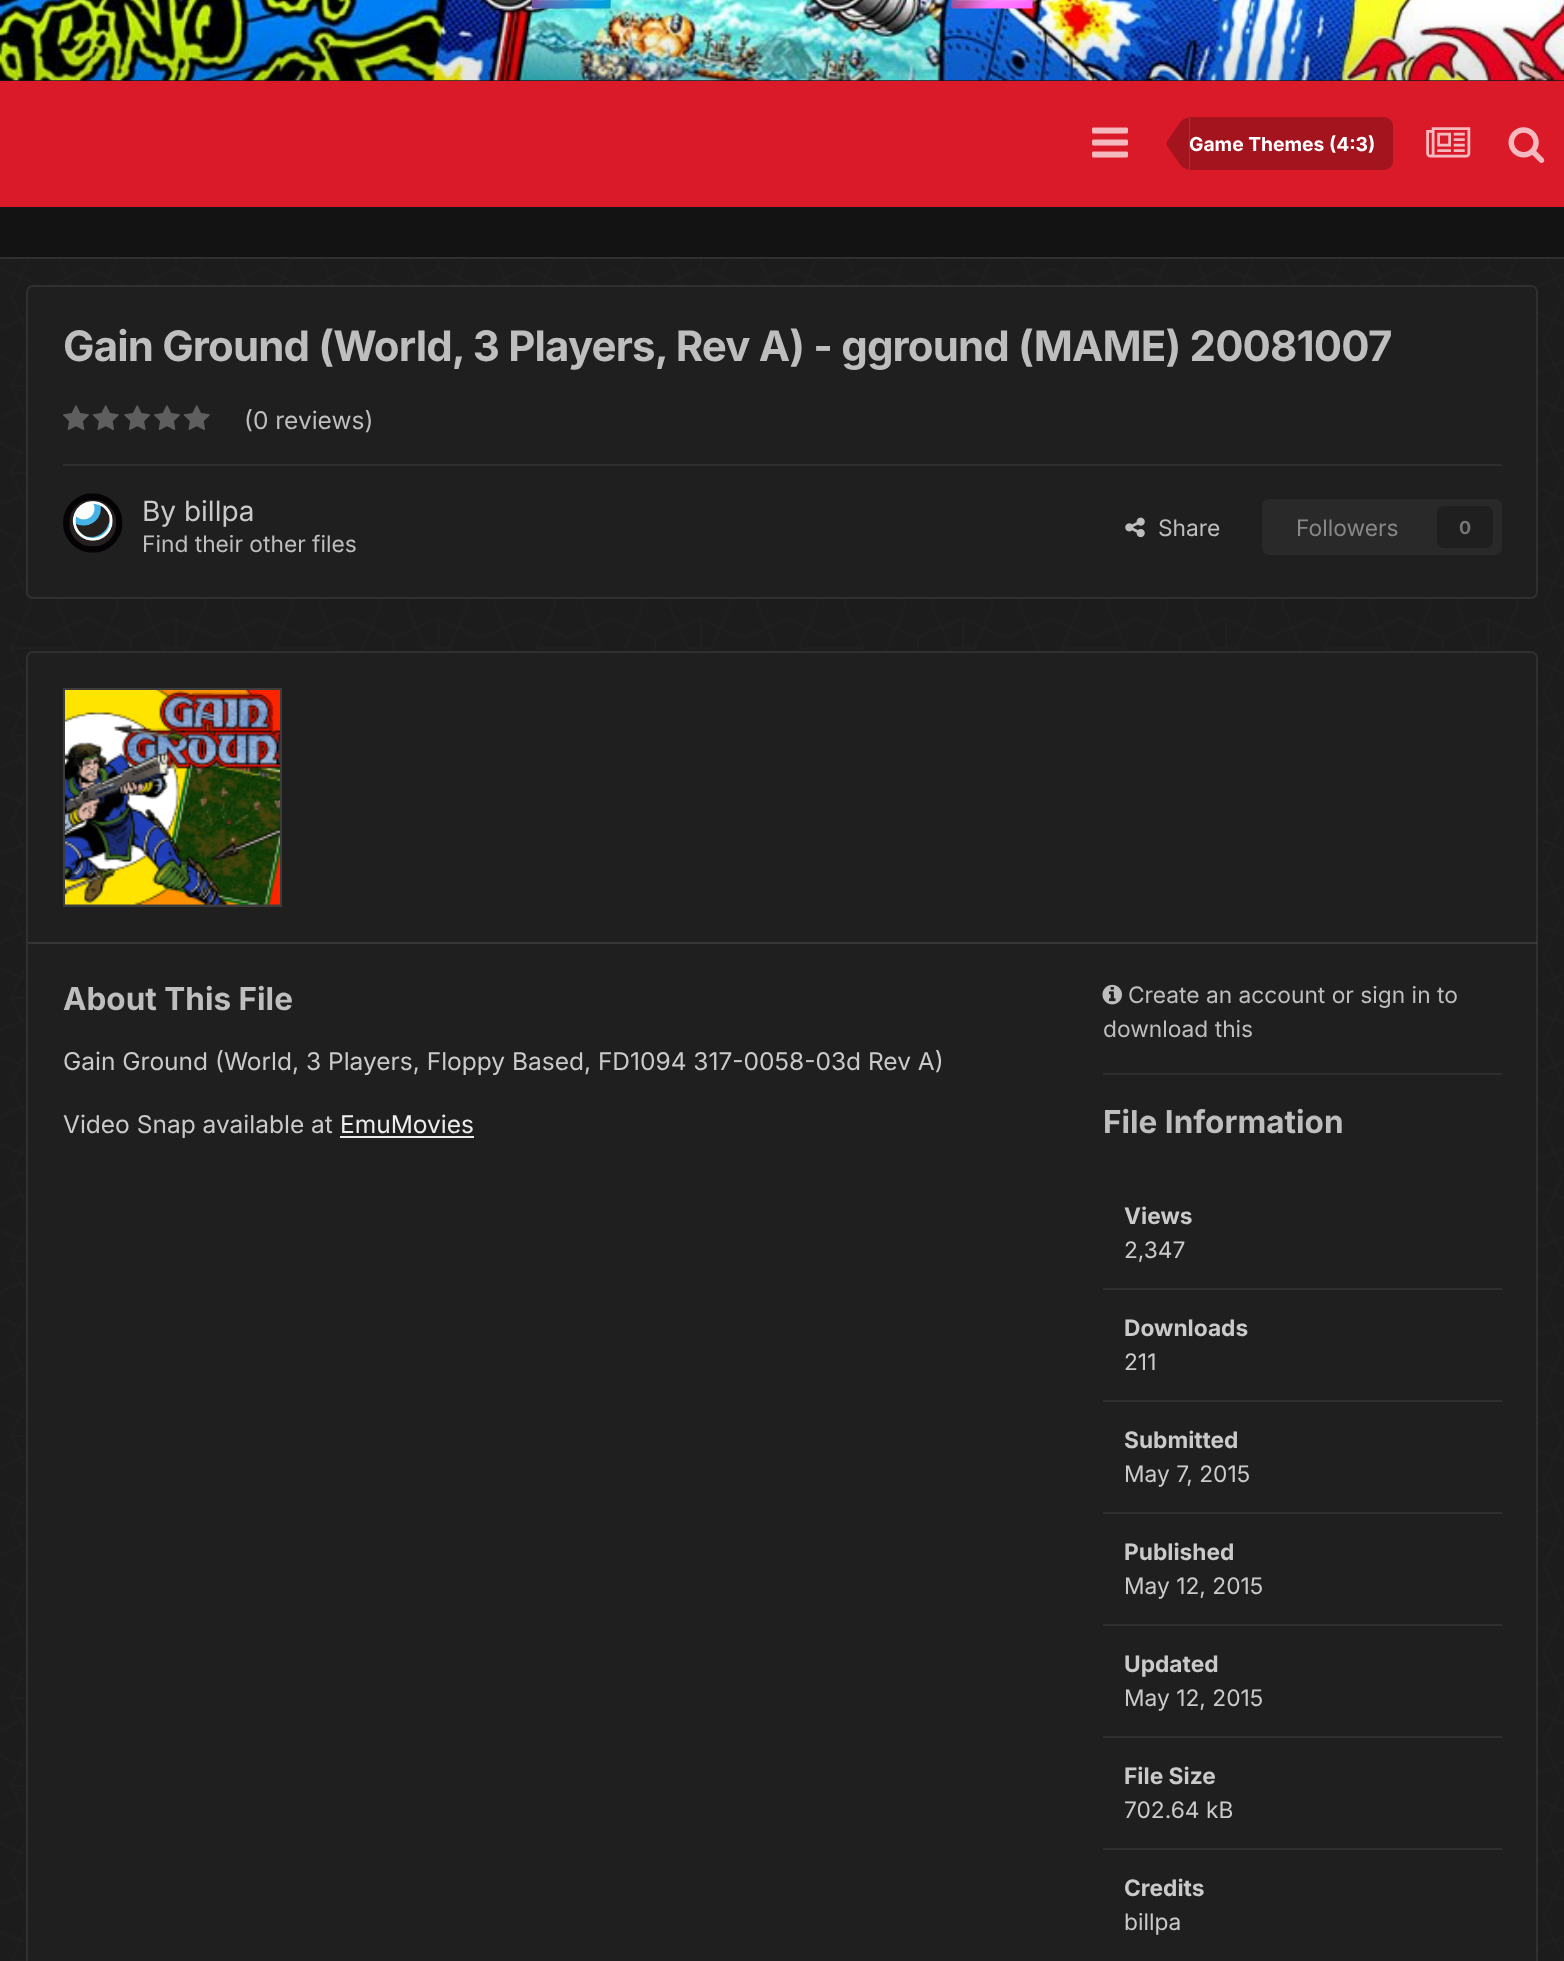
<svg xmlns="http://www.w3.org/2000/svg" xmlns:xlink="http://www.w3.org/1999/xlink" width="1564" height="1961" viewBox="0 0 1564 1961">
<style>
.cls-1{font:bold 19.25px Inter;fill:#ffffff}
.cls-2{font:bold 42px Inter;letter-spacing:-0.85px;fill:#bebebe}
.cls-3{font:24.5px Inter;fill:#bebebe}
.cls-4{font:28px Inter;fill:#cacaca}
.cls-5{font:22.75px Inter;fill:#bebebe}
.cls-6{font:22.75px Inter;fill:#878787}
.cls-7{font:bold 18px Inter;fill:#757575}
.cls-8{font:bold 31.5px Inter;fill:#bebebe}
.cls-9{font:24.5px Inter;fill:#cacaca}
.cls-10{font:24.5px Inter;fill:#ededed}
.cls-11{font:bold 22.75px Inter;fill:#cacaca}
.cls-12{font:22.75px Inter;fill:#cacaca}
</style>
<rect width="100%" height="100%" fill="#ffffff"/>
<image xlink:href="image0.png" x="0" y="259" width="1564" height="1702"/>
<rect fill="#1a1a1a" x="0" y="80" width="1564" height="1"/>
<image xlink:href="image1.png" x="0" y="0" width="1564" height="81"/>
<image xlink:href="image2.png" x="532" y="0" width="501" height="9"/>
<rect fill="#000000" fill-opacity="0.1" filter="blur(16.5px)" x="-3" y="44" width="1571" height="185"/>
<rect fill="#131313" x="0" y="207" width="1564" height="50"/>
<rect fill="#db1a29" x="0" y="81" width="1564" height="126"/>
<rect fill="#303030" x="0" y="257" width="1564" height="2"/>
<image xlink:href="image3.png" x="1092" y="127" width="36" height="31"/>
<path fill="#a4141f" d="M1190 117H1384C1389 117 1393 121 1393 126V161C1393 166 1389 170 1384 170H1190Z"/>
<path fill="#a4141f" d="M1189 169.5C1185.5 169.5 1182 167.5 1179 163L1168 147C1167 146 1166.5 145 1166.5 143.5H1189Z"/>
<path fill="#000000" fill-opacity="0.25" d="M1189 117.5V143.5H1166.5C1166.5 142 1167 141 1168 140L1179 124C1182 119.5 1185.5 117.5 1189 117.5Z"/>
<image xlink:href="image4.png" x="1426" y="127" width="45" height="31"/>
<image xlink:href="image5.png" x="1508" y="127" width="37" height="36"/>
<rect fill="#1f1f1f" stroke="#303030" stroke-width="2" x="27" y="286" width="1510" height="312" rx="6"/>
<image xlink:href="image6.png" x="63" y="405" width="26" height="25"/>
<image xlink:href="image7.png" x="92" y="405" width="27" height="25"/>
<image xlink:href="image8.png" x="124" y="405" width="27" height="25"/>
<image xlink:href="image6.png" x="154" y="405" width="26" height="25"/>
<image xlink:href="image7.png" x="183" y="405" width="27" height="25"/>
<rect fill="#2d2d2d" x="63" y="464" width="1439" height="2"/>
<image xlink:href="image9.png" x="63" y="493" width="60" height="60"/>
<image xlink:href="image10.png" x="1125" y="517" width="20" height="21"/>
<rect fill="#292929" x="1262" y="499" width="240" height="56" rx="7"/>
<rect fill="#1f1f1f" x="1437" y="506" width="56" height="42" rx="7"/>
<rect fill="#1f1f1f" stroke="#303030" stroke-width="2" x="27" y="652" width="1510" height="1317" rx="6"/>
<rect fill="#bebebe" fill-opacity="0.15" x="28" y="942" width="1509" height="2"/>
<rect fill="#3c3c3c" x="65" y="904" width="215" height="1"/>
<image xlink:href="image11.png" x="65" y="690" width="215" height="215"/>
<rect fill="none" stroke="#3c3c3c" stroke-width="2" x="64" y="689" width="217" height="217"/>
<rect fill="#ededed" x="340" y="1136" width="134" height="2"/>
<image xlink:href="image12.png" x="1102" y="984" width="20" height="21"/>
<rect fill="#2d2d2d" x="1103" y="1073" width="399" height="2"/>
<rect fill="#2f2f2f" x="1103" y="1288" width="399" height="2"/>
<rect fill="#2f2f2f" x="1103" y="1400" width="399" height="2"/>
<rect fill="#2f2f2f" x="1103" y="1512" width="399" height="2"/>
<rect fill="#2f2f2f" x="1103" y="1624" width="399" height="2"/>
<rect fill="#2f2f2f" x="1103" y="1736" width="399" height="2"/>
<rect fill="#2f2f2f" x="1103" y="1848" width="399" height="2"/>
<text class="cls-1" x="1189" y="151">Game Themes (4:3)</text>
<text class="cls-2" x="63" y="361">Gain Ground (World, 3 Players, Rev A) - gground (MAME) 20081007</text>
<text class="cls-3" x="244" y="429">(0 reviews)</text>
<text class="cls-4" x="142" y="521">By billpa</text>
<text class="cls-5" x="142" y="552">Find their other files</text>
<text class="cls-5" x="1158" y="536">Share</text>
<text class="cls-6" x="1296" y="536">Followers</text>
<text class="cls-7" x="1459" y="534">0</text>
<text class="cls-8" x="63" y="1010">About This File</text>
<text class="cls-9" x="63" y="1070">Gain Ground (World, 3 Players, Floppy Based, FD1094 317-0058-03d Rev A)</text>
<text class="cls-9" x="63" y="1133">Video Snap available at</text>
<text class="cls-10" x="340" y="1133">EmuMovies</text>
<text class="cls-5" x="1128" y="1003">Create an account or sign in to</text>
<text class="cls-5" x="1103" y="1037">download this</text>
<text class="cls-8" x="1103" y="1133">File Information</text>
<text class="cls-11" x="1124" y="1224">Views</text>
<text class="cls-12" x="1124" y="1258">2,347</text>
<text class="cls-11" x="1124" y="1336">Downloads</text>
<text class="cls-12" x="1124" y="1370">211</text>
<text class="cls-11" x="1124" y="1448">Submitted</text>
<text class="cls-12" x="1124" y="1482">May 7, 2015</text>
<text class="cls-11" x="1124" y="1560">Published</text>
<text class="cls-12" x="1124" y="1594">May 12, 2015</text>
<text class="cls-11" x="1124" y="1672">Updated</text>
<text class="cls-12" x="1124" y="1706">May 12, 2015</text>
<text class="cls-11" x="1124" y="1784">File Size</text>
<text class="cls-12" x="1124" y="1818">702.64 kB</text>
<text class="cls-11" x="1124" y="1896">Credits</text>
<text class="cls-12" x="1124" y="1930">billpa</text>
</svg>
